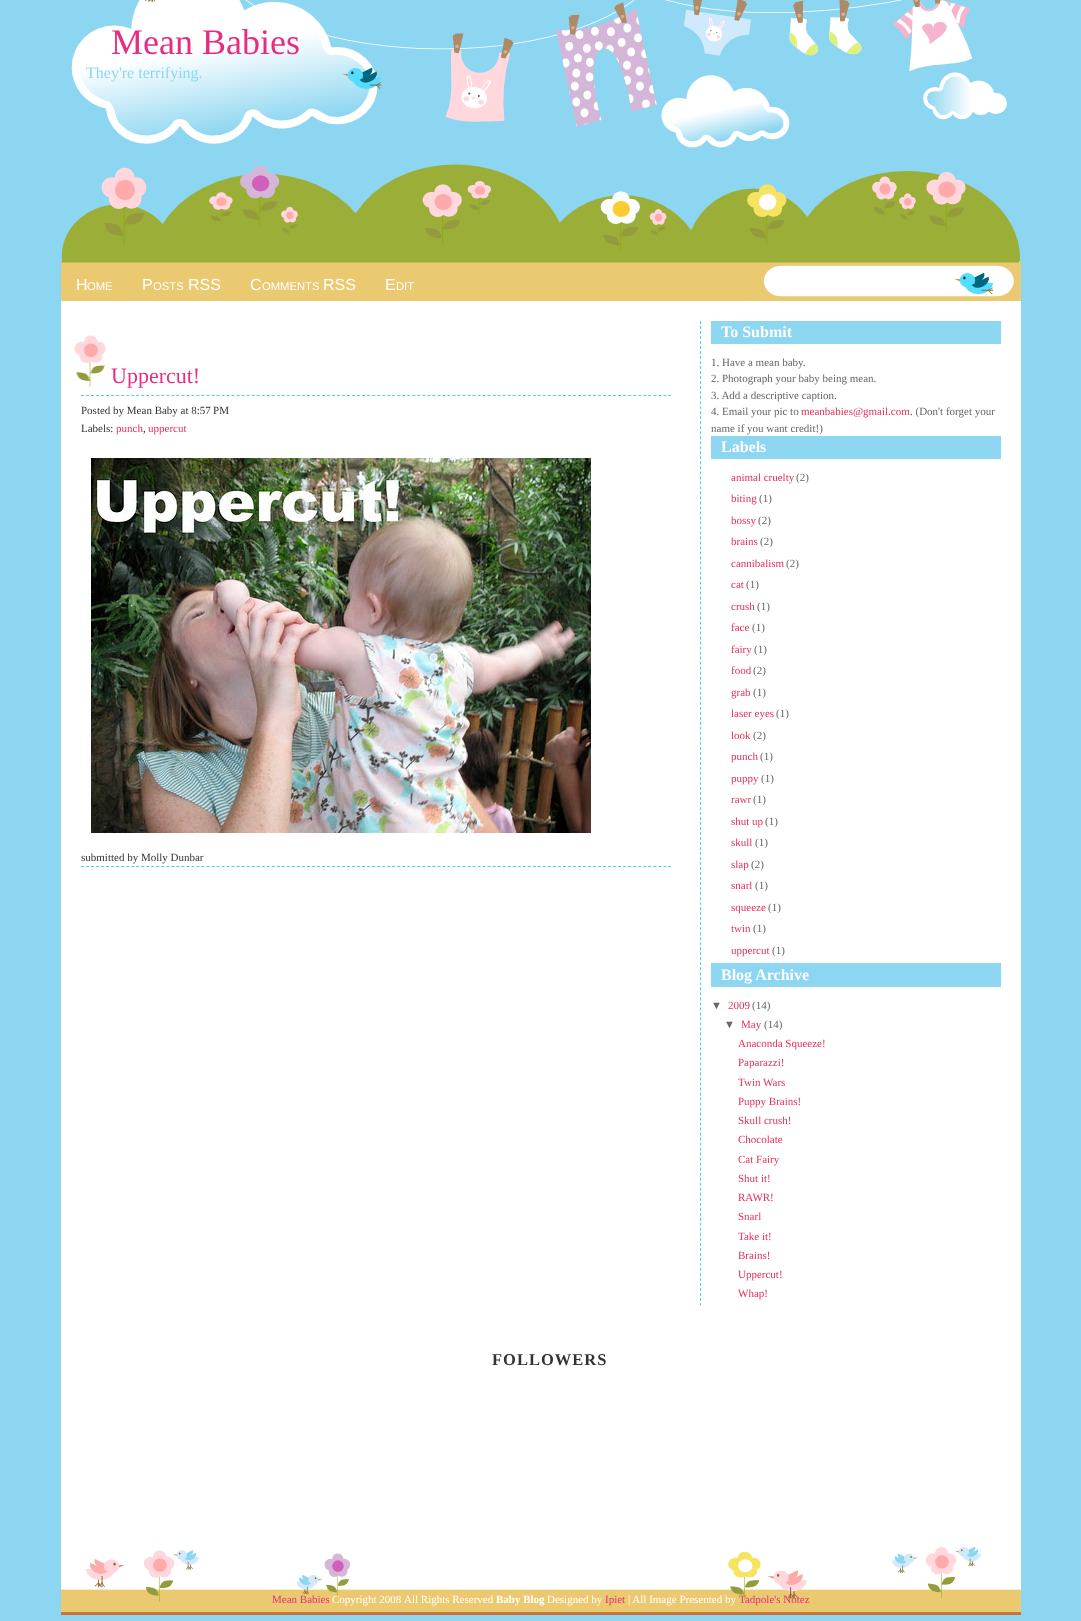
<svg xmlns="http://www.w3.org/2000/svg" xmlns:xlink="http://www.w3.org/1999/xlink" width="1081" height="1621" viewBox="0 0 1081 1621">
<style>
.cls-1{font:36px Liberation Serif;fill:#e82c81}
.cls-2{font:16px Liberation Serif;fill:#8cd6f1}
.cls-3{font:16px Liberation Sans;fill:#ffffff}
.cls-4{font:11.25px Liberation Sans;fill:#ffffff}
.cls-5{font:22px Liberation Serif;fill:#e82c81}
.cls-6{font:11px Liberation Serif;fill:#333333}
.cls-7{font:11px Liberation Serif;fill:#e33258}
.cls-8{font:bold 16px Liberation Serif;fill:#ffffff}
.cls-9{font:11px Liberation Serif;fill:#666666}
.cls-10{font:11px Liberation Sans;fill:#666666}
.cls-11{font:bold 16.5px Liberation Serif;letter-spacing:1px;fill:#333333}
.cls-12{font:11px Liberation Serif;fill:#e82c81}
.cls-13{font:11px Liberation Serif;fill:#ffffff}
.cls-14{font:bold 11px Liberation Serif;fill:#ffffff}
</style>
<rect width="100%" height="100%" fill="#8cd6f1"/>
<rect fill="#ffffff" x="61" y="301" width="960" height="1237"/>
<image xlink:href="image0.png" x="61" y="0" width="960" height="261"/>
<image xlink:href="image1.png" x="61" y="261" width="960" height="40"/>
<image xlink:href="image2.png" x="954" y="272" width="40" height="23"/>
<image xlink:href="image3.png" x="74" y="335" width="32" height="52"/>
<path fill="none" stroke="#46d0fe" stroke-dasharray="3 2.02" d="M81 395.5H671"/>
<path fill="none" stroke="#46d0fe" stroke-dasharray="3 2.02" d="M81 866.5H671"/>
<image xlink:href="image4.png" x="91" y="458" width="500" height="375"/>
<path fill="none" stroke="#46d0f3" stroke-dasharray="3 2.01" d="M700.5 321V1305"/>
<rect fill="#8cd6f1" x="711" y="321" width="290" height="23"/>
<rect fill="#8cd6f1" x="711" y="436" width="290" height="23"/>
<rect fill="#8cd6f1" x="711" y="963" width="290" height="24"/>
<image xlink:href="image5.png" x="61" y="1538" width="960" height="77"/>
<text class="cls-1" x="111" y="54">Mean Babies</text>
<text class="cls-2" x="86" y="78">They're terrifying.</text>
<text class="cls-3" x="76" y="290">H</text>
<text class="cls-4" x="87" y="290">OME</text>
<text class="cls-3" x="142" y="290">P</text>
<text class="cls-4" x="153" y="290">OSTS</text>
<text class="cls-3" x="188" y="290">RSS</text>
<text class="cls-3" x="250" y="290">C</text>
<text class="cls-4" x="262" y="290">OMMENTS</text>
<text class="cls-3" x="323" y="290">RSS</text>
<text class="cls-3" x="385" y="290">E</text>
<text class="cls-4" x="396" y="290">DIT</text>
<text class="cls-5" x="111" y="383">Uppercut!</text>
<text class="cls-6"><tspan x="81" y="414">Posted by Mean Baby at 8:57 PM</tspan><tspan x="81" y="432">Labels:</tspan></text>
<text class="cls-7" x="116" y="432">punch</text>
<text class="cls-6" x="143" y="432">,</text>
<text class="cls-7" x="148" y="432">uppercut</text>
<text class="cls-6" x="81" y="861">submitted by Molly Dunbar</text>
<text class="cls-8" x="721" y="337">To Submit</text>
<text class="cls-9"><tspan x="711" y="366">1. Have a mean baby.</tspan><tspan x="711" y="382">2. Photograph your baby being mean.</tspan><tspan x="711" y="399">3. Add a descriptive caption.</tspan><tspan x="711" y="415">4. Email your pic to</tspan></text>
<text class="cls-7" x="801" y="415">meanbabies@gmail.com</text>
<text class="cls-9" x="910" y="415">. (Don't forget your</text>
<text class="cls-9" x="711" y="432">name if you want credit!)</text>
<text class="cls-8" x="721" y="452">Labels</text>
<text class="cls-7" x="731" y="481">animal cruelty</text>
<text class="cls-9" x="796" y="481">(2)</text>
<text class="cls-7" x="731" y="502">biting</text>
<text class="cls-9" x="759" y="502">(1)</text>
<text class="cls-7" x="731" y="524">bossy</text>
<text class="cls-9" x="758" y="524">(2)</text>
<text class="cls-7" x="731" y="545">brains</text>
<text class="cls-9" x="760" y="545">(2)</text>
<text class="cls-7" x="731" y="567">cannibalism</text>
<text class="cls-9" x="786" y="567">(2)</text>
<text class="cls-7" x="731" y="588">cat</text>
<text class="cls-9" x="746" y="588">(1)</text>
<text class="cls-7" x="731" y="610">crush</text>
<text class="cls-9" x="757" y="610">(1)</text>
<text class="cls-7" x="731" y="631">face</text>
<text class="cls-9" x="752" y="631">(1)</text>
<text class="cls-7" x="731" y="653">fairy</text>
<text class="cls-9" x="754" y="653">(1)</text>
<text class="cls-7" x="731" y="674">food</text>
<text class="cls-9" x="753" y="674">(2)</text>
<text class="cls-7" x="731" y="696">grab</text>
<text class="cls-9" x="753" y="696">(1)</text>
<text class="cls-7" x="731" y="717">laser eyes</text>
<text class="cls-9" x="776" y="717">(1)</text>
<text class="cls-7" x="731" y="739">look</text>
<text class="cls-9" x="753" y="739">(2)</text>
<text class="cls-7" x="731" y="760">punch</text>
<text class="cls-9" x="760" y="760">(1)</text>
<text class="cls-7" x="731" y="782">puppy</text>
<text class="cls-9" x="761" y="782">(1)</text>
<text class="cls-7" x="731" y="803">rawr</text>
<text class="cls-9" x="753" y="803">(1)</text>
<text class="cls-7" x="731" y="825">shut up</text>
<text class="cls-9" x="765" y="825">(1)</text>
<text class="cls-7" x="731" y="846">skull</text>
<text class="cls-9" x="755" y="846">(1)</text>
<text class="cls-7" x="731" y="868">slap</text>
<text class="cls-9" x="751" y="868">(2)</text>
<text class="cls-7" x="731" y="889">snarl</text>
<text class="cls-9" x="755" y="889">(1)</text>
<text class="cls-7" x="731" y="911">squeeze</text>
<text class="cls-9" x="768" y="911">(1)</text>
<text class="cls-7" x="731" y="932">twin</text>
<text class="cls-9" x="753" y="932">(1)</text>
<text class="cls-7" x="731" y="954">uppercut</text>
<text class="cls-9" x="772" y="954">(1)</text>
<text class="cls-8" x="721" y="980">Blog Archive</text>
<text class="cls-10" x="711" y="1009">▼</text>
<text class="cls-7" x="728" y="1009">2009</text>
<text class="cls-9" x="752" y="1009">(14)</text>
<text class="cls-10" x="724" y="1028">▼</text>
<text class="cls-7" x="741" y="1028">May</text>
<text class="cls-9" x="764" y="1028">(14)</text>
<text class="cls-7"><tspan x="738" y="1047">Anaconda Squeeze!</tspan><tspan x="738" y="1066">Paparazzi!</tspan><tspan x="738" y="1086">Twin Wars</tspan><tspan x="738" y="1105">Puppy Brains!</tspan><tspan x="738" y="1124">Skull crush!</tspan><tspan x="738" y="1143">Chocolate</tspan><tspan x="738" y="1163">Cat Fairy</tspan><tspan x="738" y="1182">Shut it!</tspan><tspan x="738" y="1201">RAWR!</tspan><tspan x="738" y="1220">Snarl</tspan><tspan x="738" y="1240">Take it!</tspan><tspan x="738" y="1259">Brains!</tspan><tspan x="738" y="1278">Uppercut!</tspan><tspan x="738" y="1297">Whap!</tspan></text>
<text class="cls-11" x="492" y="1365">FOLLOWERS</text>
<text class="cls-12" x="272" y="1603">Mean Babies</text>
<text class="cls-13" x="332" y="1603">Copyright 2008</text>
<text class="cls-13" x="404" y="1603">All Rights Reserved</text>
<text class="cls-14" x="496" y="1603">Baby Blog</text>
<text class="cls-13" x="547" y="1603">Designed by</text>
<text class="cls-12" x="605" y="1603">Ipiet</text>
<text class="cls-13" x="628" y="1603">| All Image Presented by</text>
<text class="cls-12" x="739" y="1603">Tadpole's Notez</text>
</svg>
